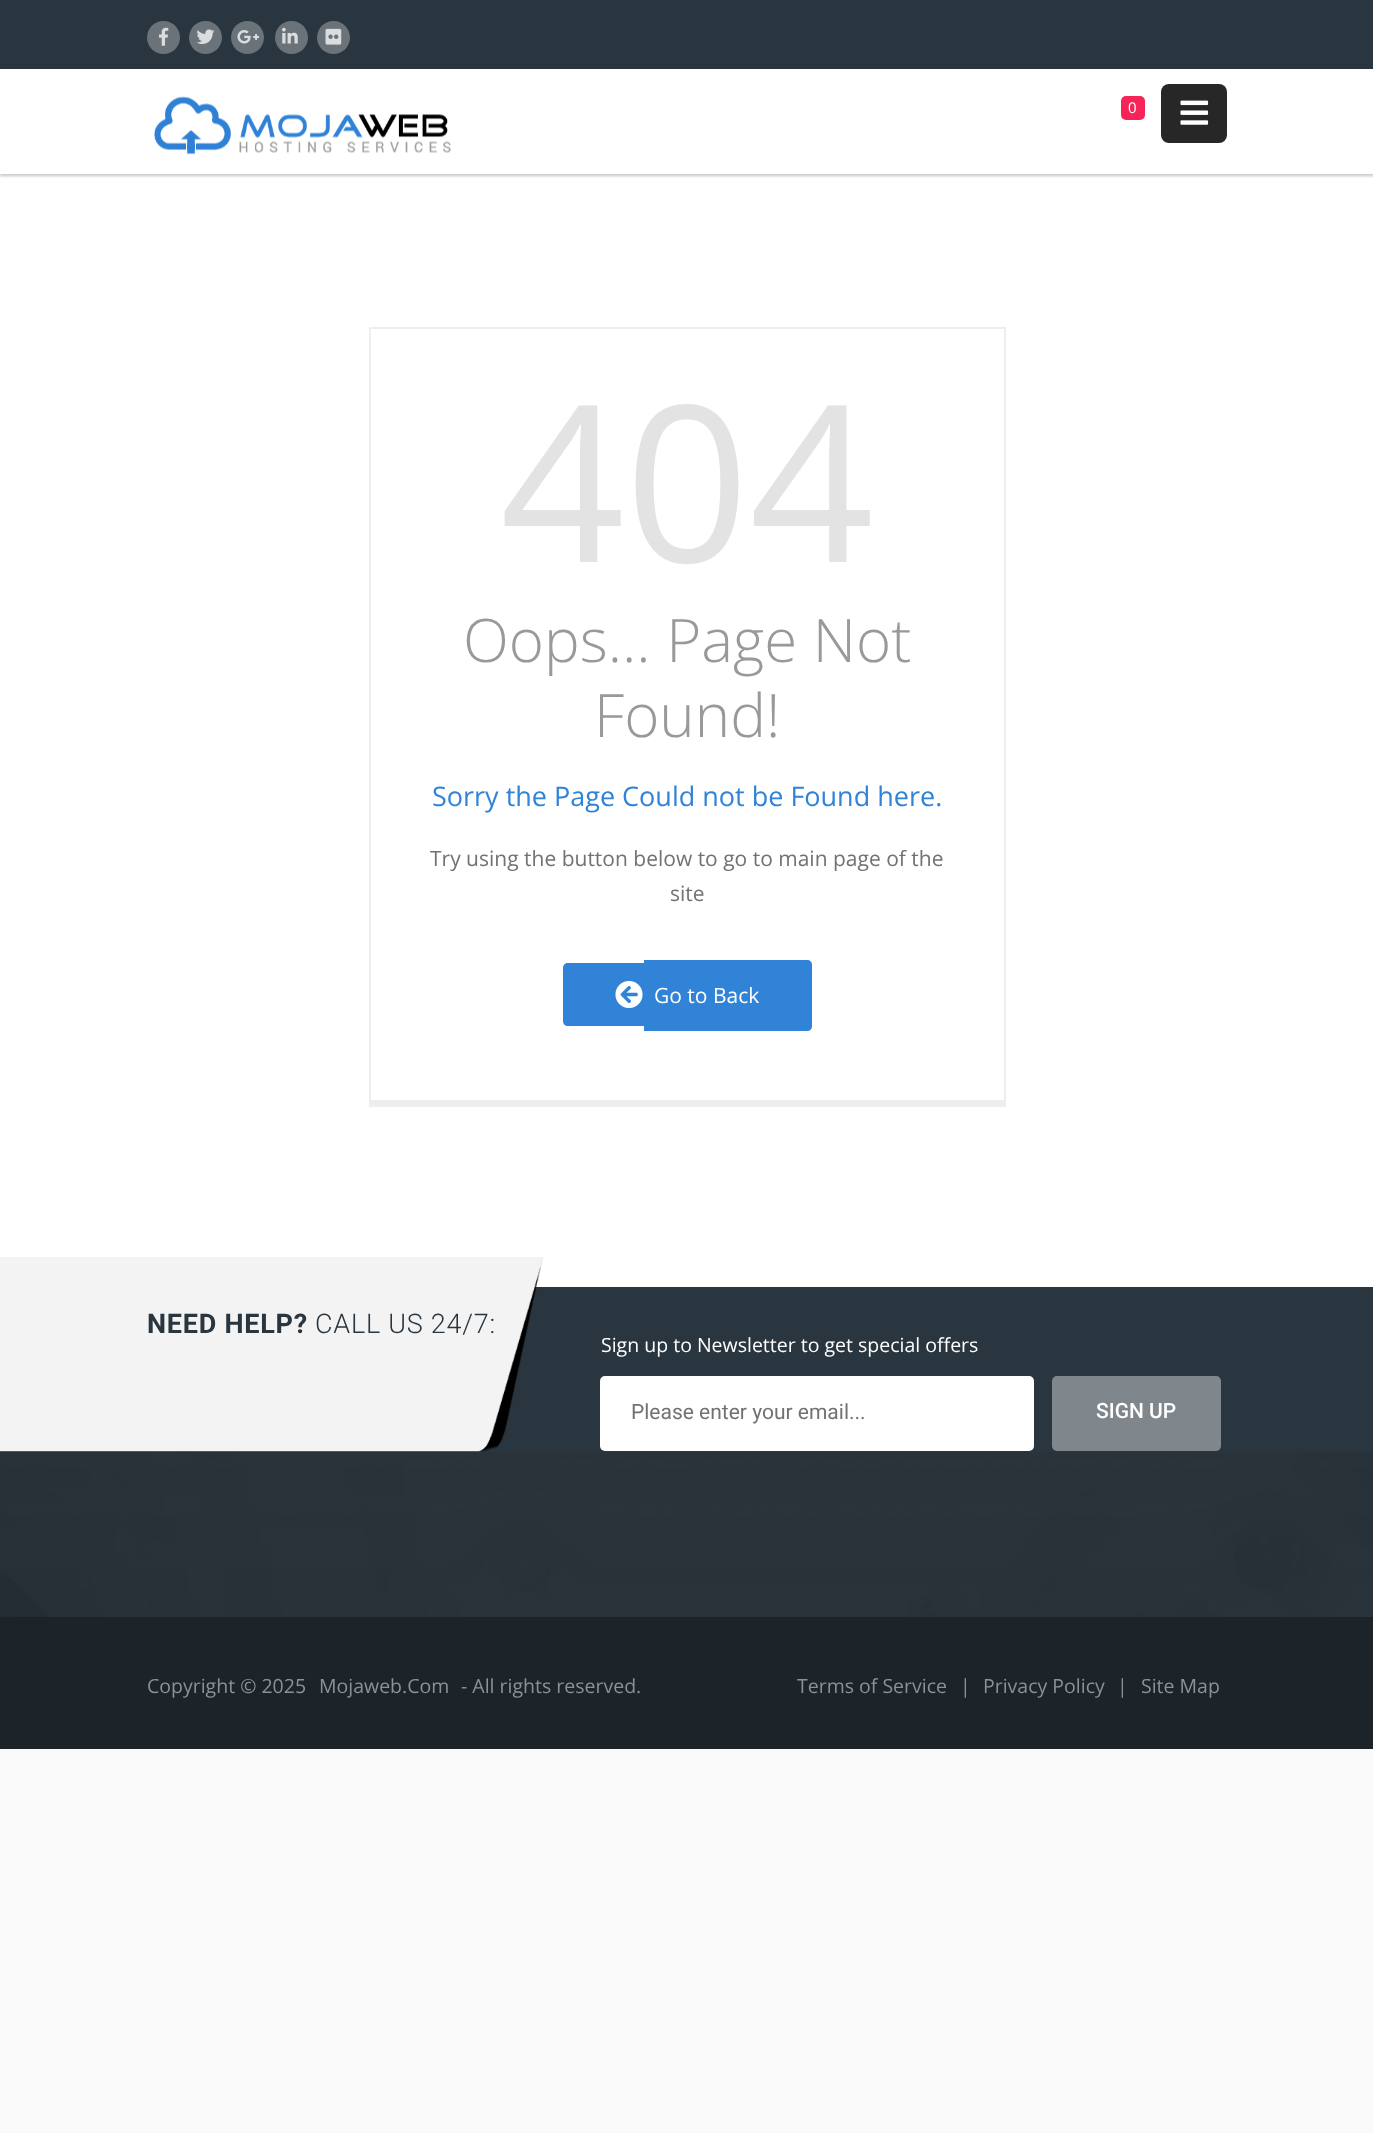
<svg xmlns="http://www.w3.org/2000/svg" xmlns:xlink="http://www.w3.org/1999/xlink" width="1373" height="2133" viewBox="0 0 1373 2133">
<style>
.cls-1{font:15px Open Sans;fill:#ffffff}
.cls-2{font:218px Open Sans;fill:#e3e3e3}
.cls-3{font:300 60px Open Sans;fill:#999999}
.cls-4{font:27px Open Sans;fill:#3183d7}
.cls-5{font:21px Open Sans;fill:#727272}
.cls-6{font:21px Open Sans;fill:#ffffff}
.cls-7{font:bold 27px Roboto;letter-spacing:0.75px;fill:#2a363f}
.cls-8{font:300 27px Roboto;letter-spacing:0.75px;fill:#2a363f}
.cls-9{font:19.5px Open Sans;fill:#ffffff}
.cls-10{font:21px Roboto;fill:#727272}
.cls-11{font:500 21px Roboto;fill:#ffffff}
.cls-12{font:19.5px Open Sans;fill:#8e9194}
</style>
<rect width="100%" height="100%" fill="#fafafa"/>
<rect fill="#2a363f" x="0" y="0" width="1373" height="69"/>
<circle fill="#6a7379" cx="163.5" cy="37.5" r="16.5"/>
<image xlink:href="image0.png" x="159" y="27" width="10" height="19"/>
<circle fill="#6a7379" cx="205.5" cy="37.5" r="16.5"/>
<image xlink:href="image1.png" x="196" y="29" width="19" height="15"/>
<circle fill="#6a7379" cx="247.5" cy="37.5" r="16.5"/>
<image xlink:href="image2.png" x="237" y="30" width="23" height="14"/>
<circle fill="#6a7379" cx="291.5" cy="37.5" r="16.5"/>
<image xlink:href="image3.png" x="282" y="27" width="16" height="17"/>
<circle fill="#6a7379" cx="333.5" cy="37.5" r="16.5"/>
<image xlink:href="image4.png" x="325" y="28" width="17" height="17"/>
<rect fill="#ffffff" x="0" y="177" width="1373" height="1080"/>
<rect fill="#000000" fill-opacity="0.2" filter="blur(1.5px)" x="0" y="71" width="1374" height="105"/>
<rect fill="#ffffff" x="0" y="69" width="1373" height="105"/>
<image xlink:href="image5.png" x="154" y="96" width="297" height="59"/>
<rect fill="#f62459" x="1121" y="96" width="24" height="24" rx="5"/>
<rect fill="#272727" x="1161" y="84" width="66" height="59" rx="8"/>
<image xlink:href="image6.png" x="1180" y="100" width="29" height="25"/>
<rect fill="#eeeeee" x="369" y="327" width="636" height="2"/>
<rect fill="#eeeeee" x="1004" y="327" width="2" height="780"/>
<rect fill="#eeeeee" x="369" y="1100" width="636" height="7"/>
<rect fill="#eeeeee" x="369" y="327" width="2" height="780"/>
<path fill="#3183d7" d="M568 963H644V1026H568C565 1026 563 1024 563 1021V968C563 965 565 963 568 963Z"/>
<path fill="#3183d7" d="M644 960H807C810 960 812 962 812 965V1026C812 1029 810 1031 807 1031H644Z"/>
<image xlink:href="image7.png" x="615" y="981" width="28" height="27"/>
<rect fill="#ffffff" x="535" y="1257" width="838" height="30"/>
<image xlink:href="image8.png" x="0" y="1257" width="1373" height="195"/>
<rect fill="#ffffff" x="600" y="1376" width="434" height="75" rx="5"/>
<rect fill="#7f868c" x="1052" y="1376" width="169" height="75" rx="5"/>
<rect fill="#2a363f" x="0" y="1452" width="1373" height="165"/>
<image xlink:href="image9.png" x="0" y="1452" width="1373" height="165"/>
<rect fill="#1c2329" x="0" y="1617" width="1373" height="132"/>
<text class="cls-1" x="1128" y="113">0</text>
<text class="cls-2" x="500" y="562">404</text>
<text class="cls-3" x="463" y="662">Oops... Page Not</text>
<text class="cls-3" x="594" y="737">Found!</text>
<text class="cls-4" x="432" y="806">Sorry the Page Could not be Found here.</text>
<text class="cls-5" x="430" y="866">Try using the button below to go to main page of the</text>
<text class="cls-5" x="670" y="901">site</text>
<text class="cls-6" x="654" y="1003">Go to Back</text>
<text class="cls-7" x="147" y="1333">NEED HELP?</text>
<text class="cls-8" x="315" y="1333">CALL US 24/7:</text>
<text class="cls-9" x="601" y="1352">Sign up to Newsletter to get special offers</text>
<text class="cls-10" x="631" y="1419">Please enter your email...</text>
<text class="cls-11" x="1096" y="1418">SIGN UP</text>
<text class="cls-12" x="147" y="1693">Copyright © 2025</text>
<text class="cls-12" x="319" y="1693">Mojaweb.Com</text>
<text class="cls-12" x="461" y="1693">- All rights reserved.</text>
<text class="cls-12" x="797" y="1693">Terms of Service</text>
<text class="cls-12" x="960" y="1693">|</text>
<text class="cls-12" x="983" y="1693">Privacy Policy</text>
<text class="cls-12" x="1117" y="1693">|</text>
<text class="cls-12" x="1141" y="1693">Site Map</text>
</svg>
